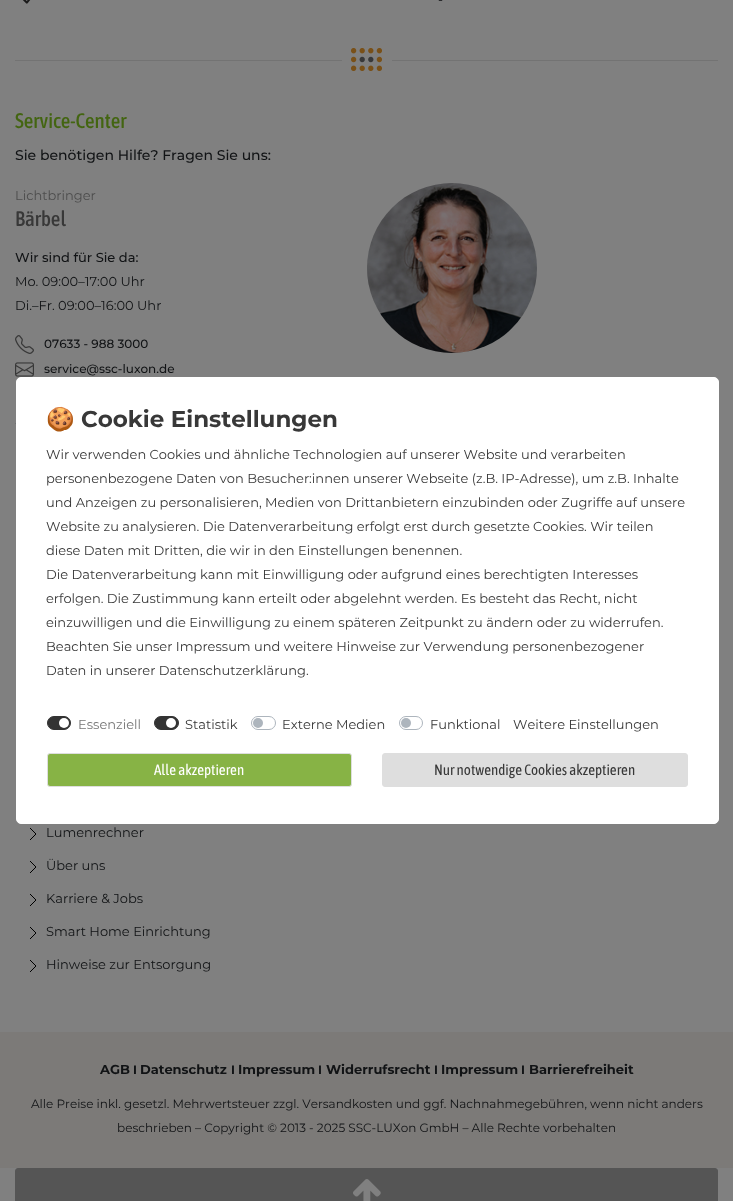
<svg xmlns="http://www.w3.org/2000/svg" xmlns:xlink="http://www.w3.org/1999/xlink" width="733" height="1201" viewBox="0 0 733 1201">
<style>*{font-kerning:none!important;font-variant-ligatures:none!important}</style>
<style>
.cls-1{font:13px Montserrat;fill:#111315}
.cls-2{font:500 21px Asap Condensed;fill:#436511}
.cls-3{font:500 14px Montserrat;fill:#111315}
.cls-4{font:13px Montserrat;fill:#4d4d4d}
.cls-5{font:500 21px Asap Condensed;fill:#383838}
.cls-6{font:500 13px Montserrat;fill:#111315}
.cls-7{font:500 12px Montserrat;fill:#111315}
.cls-8{font:bold 23px Noto Color Emoji;fill:#383838}
.cls-9{font:bold 23px Montserrat;fill:#383838}
.cls-10{font:13px Montserrat;fill:#383838}
.cls-11{font:13px Montserrat;fill:#767676}
.cls-12{font:15px Asap Condensed;fill:#ffffff}
.cls-13{font:15px Asap Condensed;fill:#383838}
.cls-14{font:bold 13px Montserrat;fill:#111315}
.cls-15{font:bold 12px Montserrat;fill:#111315}
.cls-16{font:12px Montserrat;fill:#111315}
</style>
<rect width="100%" height="100%" fill="#808080"/>
<image xlink:href="image0.png" x="22" y="0" width="9" height="4"/>
<image xlink:href="image1.png" x="351" y="48" width="31" height="23"/>
<rect fill="#737373" x="15" y="60" width="327" height="1"/>
<rect fill="#737373" x="392" y="60" width="326" height="1"/>
<image xlink:href="image2.png" x="15" y="335" width="19" height="19"/>
<image xlink:href="image3.png" x="15" y="362" width="19" height="15"/>
<image xlink:href="image4.png" x="367" y="183" width="170" height="170"/>
<rect fill="#6f7173" x="15" y="423" width="1" height="1"/>
<path fill="none" stroke="#000000" d="M30 828L36 834L30 840M30 861L36 867L30 873"/>
<path fill="none" stroke="#000000" d="M30 894L36 900L30 906M30 927L36 933L30 939"/>
<path fill="none" stroke="#000000" d="M30 960L36 966L30 972"/>
<rect fill="#ffffff" stroke="#ffffff" x="16.5" y="377.5" width="702" height="446" rx="4.5"/>
<rect fill="#333333" stroke="#333333" x="47.5" y="716.5" width="23" height="13" rx="6.5"/>
<circle fill="#ffffff" cx="64" cy="723" r="5"/>
<rect fill="#333333" stroke="#333333" x="154.5" y="716.5" width="24" height="13" rx="6.5"/>
<circle fill="#ffffff" cx="171" cy="723" r="5"/>
<rect fill="none" stroke="#adb5bd" x="251.5" y="716.5" width="24" height="13" rx="6.5"/>
<circle fill="#adb5bd" cx="258" cy="723" r="5"/>
<rect fill="none" stroke="#adb5bd" x="399.5" y="716.5" width="23" height="13" rx="6.5"/>
<circle fill="#adb5bd" cx="406" cy="723" r="5"/>
<rect fill="#87b345" stroke="#dedede" x="47.5" y="753.5" width="304" height="33" rx="2.5"/>
<rect fill="#dedede" stroke="#dedede" x="382.5" y="753.5" width="305" height="33" rx="2.5"/>
<rect fill="#7c7a78" x="0" y="1032" width="733" height="136"/>
<rect fill="#555555" stroke="#555555" x="15.5" y="1168.5" width="702" height="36" rx="2.5"/>
<image xlink:href="image5.png" x="353" y="1179" width="28" height="22"/>
<text class="cls-1" x="438" y="4">-</text>
<text class="cls-2" x="15" y="128">Service-Center</text>
<text class="cls-3" x="15" y="160">Sie benötigen Hilfe? Fragen Sie uns:</text>
<text class="cls-4" x="15" y="200">Lichtbringer</text>
<text class="cls-5" x="15" y="226">Bärbel</text>
<text class="cls-6" x="15" y="262">Wir sind für Sie da:</text>
<text class="cls-1"><tspan x="15" y="286">Mo. 09:00–17:00 Uhr</tspan><tspan x="15" y="310">Di.–Fr. 09:00–16:00 Uhr</tspan></text>
<text class="cls-7" x="44" y="348">07633 - 988 3000</text>
<text class="cls-7" x="44" y="373">service@ssc-luxon.de</text>
<text class="cls-1" x="46" y="837">Lumenrechner</text>
<text class="cls-1" x="46" y="870">Über uns</text>
<text class="cls-1" x="46" y="903">Karriere &amp; Jobs</text>
<text class="cls-1" x="46" y="936">Smart Home Einrichtung</text>
<text class="cls-1" x="46" y="969">Hinweise zur Entsorgung</text>
<text class="cls-8" x="46" y="427">🍪</text>
<text class="cls-9" x="81" y="427">Cookie Einstellungen</text>
<text class="cls-10"><tspan x="46" y="459">Wir verwenden Cookies und ähnliche Technologien auf unserer Website und verarbeiten</tspan><tspan x="46" y="483">personenbezogene Daten von Besucher:innen unserer Webseite (z.B. IP-Adresse), um z.B. Inhalte</tspan><tspan x="46" y="507">und Anzeigen zu personalisieren, Medien von Drittanbietern einzubinden oder Zugriffe auf unsere</tspan><tspan x="46" y="531">Website zu analysieren. Die Datenverarbeitung erfolgt erst durch gesetzte</tspan></text>
<text class="cls-10" x="533" y="531">Cookies. Wir teilen</text>
<text class="cls-10"><tspan x="46" y="555">diese Daten mit Dritten, die wir in den Einstellungen benennen.</tspan><tspan x="46" y="579">Die Datenverarbeitung kann mit Einwilligung oder aufgrund eines berechtigten Interesses</tspan><tspan x="46" y="603">erfolgen. Die Zustimmung kann erteilt oder abgelehnt werden. Es besteht das Recht, nicht</tspan><tspan x="46" y="627">einzuwilligen und die Einwilligung zu einem späteren Zeitpunkt zu ändern oder zu widerrufen.</tspan><tspan x="46" y="651">Beachten Sie unser Impressum und weitere Hinweise zur Verwendung personenbezogener</tspan><tspan x="46" y="675">Daten in unserer Datenschutzerklärung.</tspan></text>
<text class="cls-11" x="78" y="729">Essenziell</text>
<text class="cls-10" x="185" y="729">Statistik</text>
<text class="cls-10" x="282" y="729">Externe Medien</text>
<text class="cls-10" x="430" y="729">Funktional</text>
<text class="cls-10" x="513" y="729">Weitere Einstellungen</text>
<text class="cls-12" x="154" y="775">Alle akzeptieren</text>
<text class="cls-13" x="434" y="775">Nur notwendige Cookies akzeptieren</text>
<text class="cls-14" x="100" y="1074">AGB</text>
<text class="cls-15" x="133" y="1074">I</text>
<text class="cls-14" x="140" y="1074">Datenschutz</text>
<text class="cls-15" x="231" y="1074">I</text>
<text class="cls-14" x="238" y="1074">Impressum</text>
<text class="cls-15" x="318" y="1074">I</text>
<text class="cls-14" x="326" y="1074">Widerrufsrecht</text>
<text class="cls-15" x="434" y="1074">I</text>
<text class="cls-14" x="441" y="1074">Impressum</text>
<text class="cls-15" x="521" y="1074">I</text>
<text class="cls-14" x="529" y="1074">Barrierefreiheit</text>
<text class="cls-16" x="31" y="1108">Alle Preise inkl. gesetzl. Mehrwertsteuer zzgl. Versandkosten und ggf. Nachnahmegebühren, wenn nicht anders</text>
<text class="cls-16" x="117" y="1132">beschrieben – Copyright © 2013 - 2025 SSC-LUXon GmbH – Alle Rechte vorbehalten</text>
</svg>
